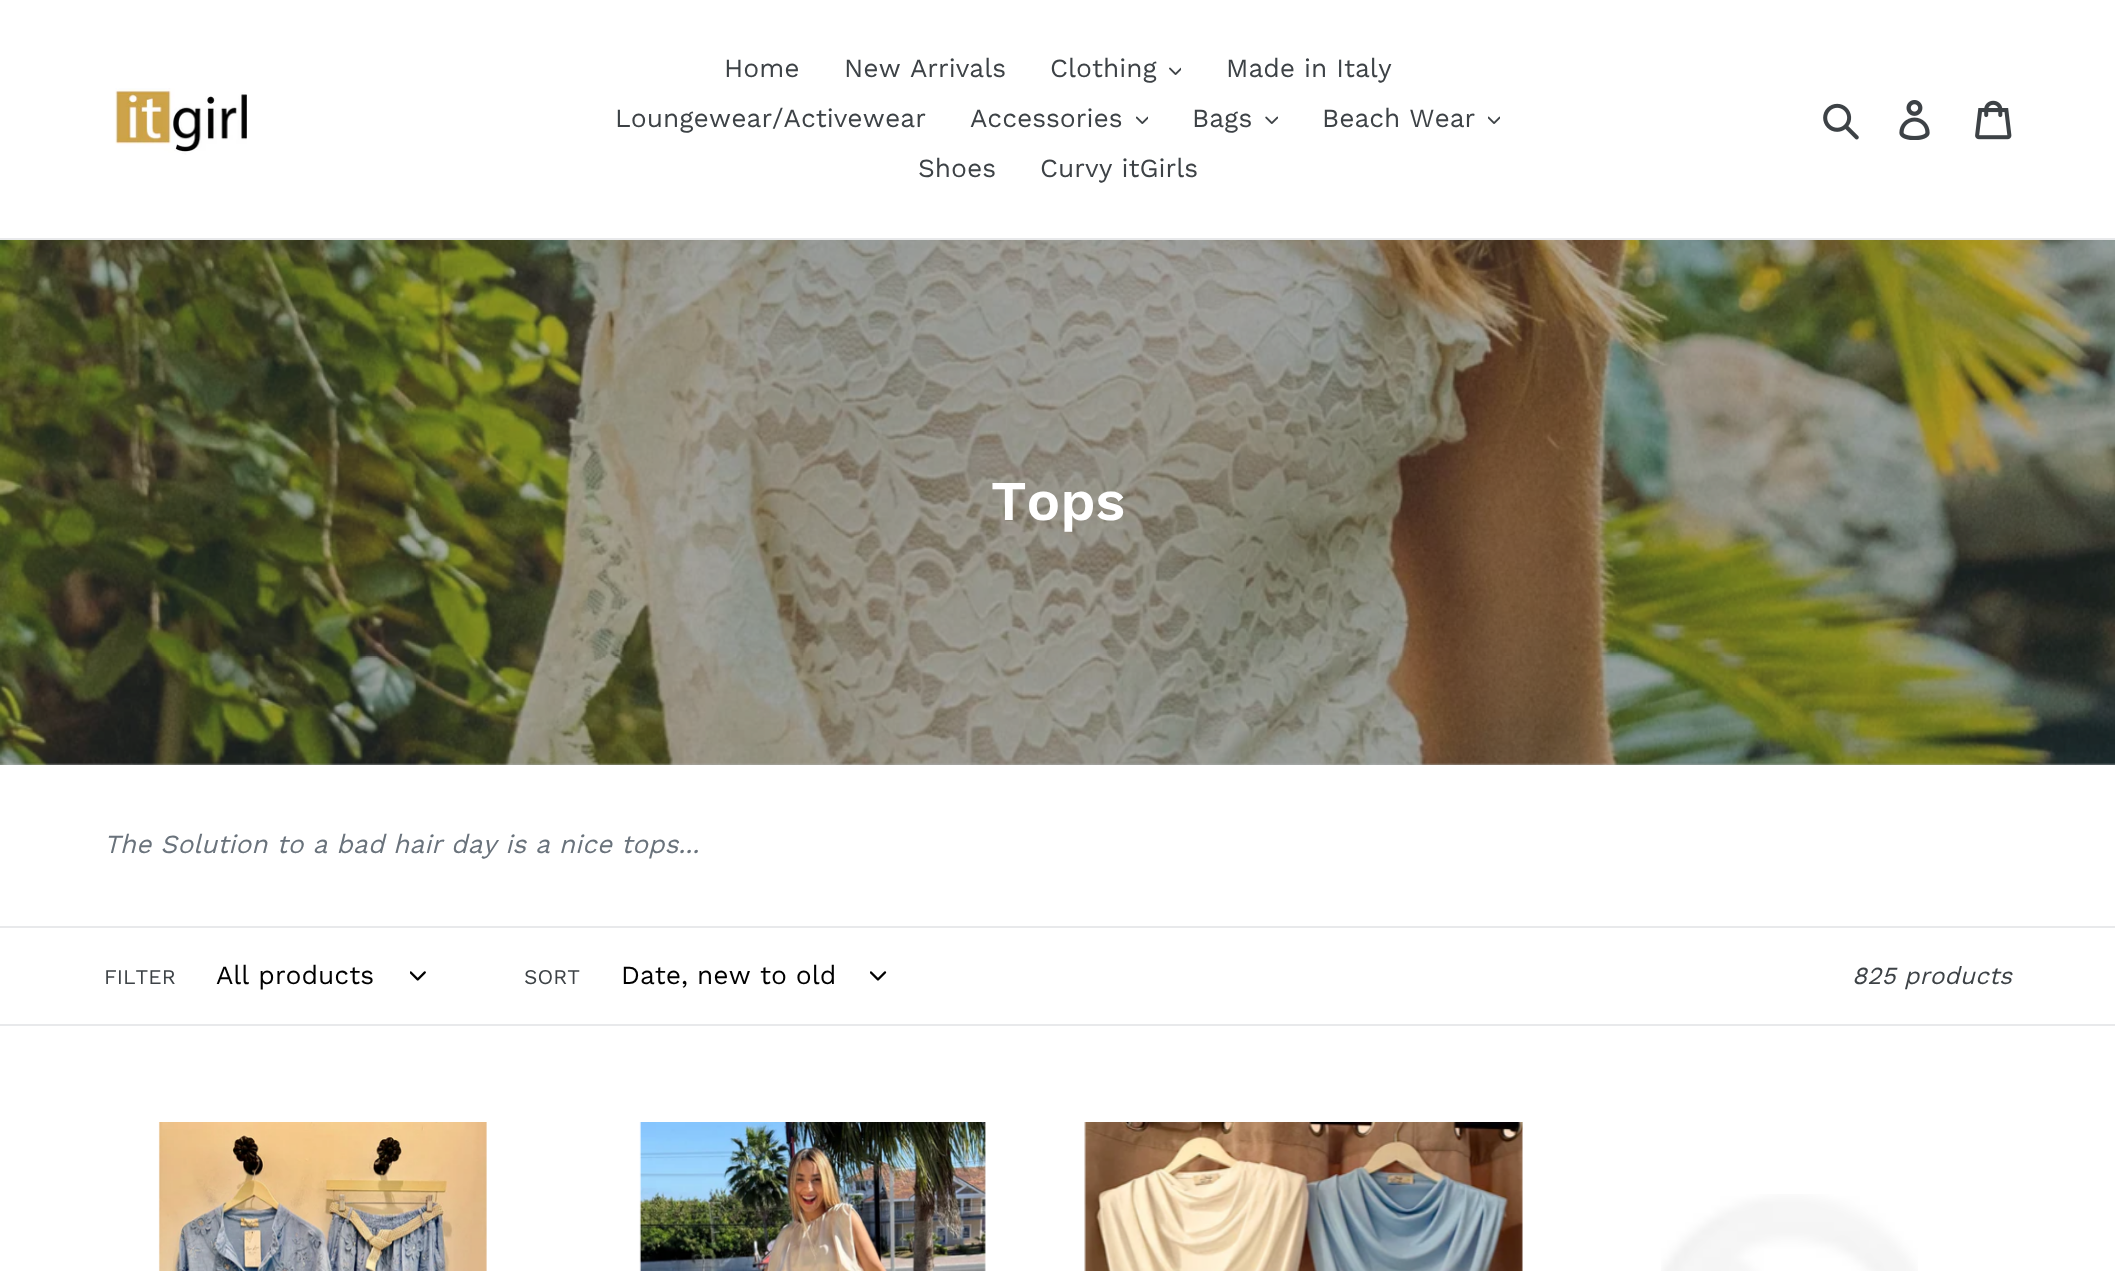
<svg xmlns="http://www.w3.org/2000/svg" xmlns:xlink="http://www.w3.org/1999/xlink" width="2115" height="1271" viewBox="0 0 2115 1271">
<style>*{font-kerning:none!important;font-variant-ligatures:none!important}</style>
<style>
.cls-1{font:26.25px Work Sans;fill:#3d4246}
.cls-2{font:600 56px Work Sans;fill:#ffffff}
.cls-3{font:italic 26.25px Work Sans;fill:#69727b}
.cls-4{font:21px Work Sans;fill:#3d4246}
.cls-5{font:26.25px Work Sans;fill:#000000}
.cls-6{font:italic 24.5px Work Sans;fill:#3d4246}
</style>
<rect width="100%" height="100%" fill="#ffffff"/>
<rect fill="#b1b3b5" x="0" y="763" width="2115" height="2"/>
<rect fill="#e8e9eb" x="0" y="238" width="2115" height="2"/>
<image xlink:href="image0.png" x="115" y="88" width="132" height="67"/>
<image xlink:href="image1.png" x="1169" y="67" width="12" height="8"/>
<image xlink:href="image2.png" x="1136" y="116" width="12" height="8"/>
<image xlink:href="image3.png" x="1265" y="116" width="13" height="8"/>
<image xlink:href="image4.png" x="1488" y="116" width="12" height="8"/>
<image xlink:href="image5.png" x="1823" y="103" width="36" height="37"/>
<image xlink:href="image6.png" x="1899" y="100" width="31" height="40"/>
<image xlink:href="image7.png" x="1975" y="100" width="37" height="40"/>
<image xlink:href="image8.png" x="0" y="240" width="2115" height="525"/>
<rect fill="#e8e9eb" x="0" y="926" width="2115" height="2"/>
<rect fill="#e8e9eb" x="0" y="1024" width="2115" height="2"/>
<image xlink:href="image9.png" x="410" y="971" width="16" height="10"/>
<image xlink:href="image10.png" x="870" y="971" width="17" height="10"/>
<image xlink:href="image11.png" x="158" y="1122" width="329" height="149"/>
<image xlink:href="image12.png" x="639" y="1122" width="347" height="149"/>
<image xlink:href="image13.png" x="1084" y="1122" width="439" height="149"/>
<image xlink:href="image14.png" x="1661" y="1194" width="257" height="77"/>
<text class="cls-1" x="724" y="77">Home</text>
<text class="cls-1" x="844" y="77">New Arrivals</text>
<text class="cls-1" x="1050" y="77">Clothing</text>
<text class="cls-1" x="1226" y="77">Made in Italy</text>
<text class="cls-1" x="615" y="127">Loungewear/Activewear</text>
<text class="cls-1" x="970" y="127">Accessories</text>
<text class="cls-1" x="1192" y="127">Bags</text>
<text class="cls-1" x="1322" y="127">Beach Wear</text>
<text class="cls-1" x="918" y="177">Shoes</text>
<text class="cls-1" x="1040" y="177">Curvy itGirls</text>
<text class="cls-2" x="991" y="520">Tops</text>
<text class="cls-3" x="104" y="853">The Solution to a bad hair day is a nice</text>
<text class="cls-3" x="621" y="853">tops...</text>
<text class="cls-4" x="104" y="984">FILTER</text>
<text class="cls-5" x="216" y="984">All products</text>
<text class="cls-4" x="524" y="984">SORT</text>
<text class="cls-5" x="621" y="984">Date, new to old</text>
<text class="cls-6" x="1852" y="984">825 products</text>
</svg>
